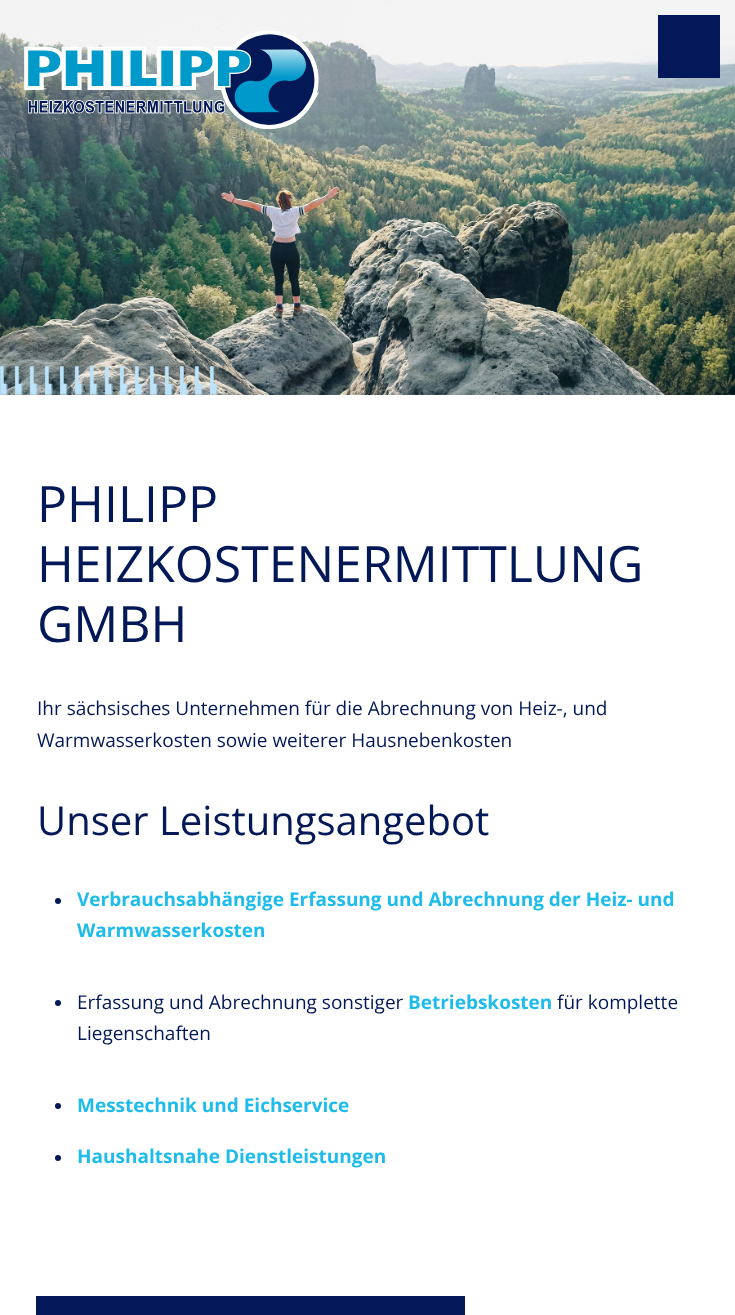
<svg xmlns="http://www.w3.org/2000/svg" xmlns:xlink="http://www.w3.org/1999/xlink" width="735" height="1315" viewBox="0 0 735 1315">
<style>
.cls-1{font:50px Open Sans;fill:#031957}
.cls-2{font:19px Open Sans;fill:#031957}
.cls-3{font:40px Open Sans;fill:#031957}
.cls-4{font:bold 19px Open Sans;fill:#1ebcec}
</style>
<rect width="100%" height="100%" fill="#ffffff"/>
<image xlink:href="image0.png" x="0" y="0" width="735" height="395"/>
<image xlink:href="image1.png" x="0" y="366" width="218" height="29"/>
<image xlink:href="image2.png" x="24" y="30" width="295" height="99"/>
<image xlink:href="image3.png" x="24" y="42" width="295" height="87"/>
<rect fill="#031759" x="658" y="15" width="62" height="63"/>
<circle fill="#031957" cx="58" cy="901" r="3"/>
<circle fill="#031957" cx="58" cy="1003" r="3"/>
<circle fill="#031957" cx="58" cy="1106" r="3"/>
<circle fill="#031957" cx="58" cy="1158" r="3"/>
<rect fill="#031759" x="36" y="1296" width="429" height="19"/>
<text class="cls-1"><tspan x="37" y="522">PHILIPP</tspan><tspan x="37" y="582">HEIZKOSTENERMITTLUNG</tspan><tspan x="37" y="642">GMBH</tspan></text>
<text class="cls-2"><tspan x="37" y="715">Ihr sächsisches Unternehmen für die Abrechnung von Heiz-, und</tspan><tspan x="37" y="747">Warmwasserkosten sowie weiterer Hausnebenkosten</tspan></text>
<text class="cls-3" x="37" y="835">Unser Leistungsangebot</text>
<text class="cls-4"><tspan x="77" y="906">Verbrauchsabhängige Erfassung und Abrechnung der Heiz- und</tspan><tspan x="77" y="937">Warmwasserkosten</tspan></text>
<text class="cls-2" x="77" y="1009">Erfassung und Abrechnung sonstiger</text>
<text class="cls-4" x="408" y="1009">Betriebskosten</text>
<text class="cls-2" x="557" y="1009">für komplette</text>
<text class="cls-2" x="77" y="1040">Liegenschaften</text>
<text class="cls-4" x="77" y="1112">Messtechnik und Eichservice</text>
<text class="cls-4" x="77" y="1163">Haushaltsnahe Dienstleistungen</text>
</svg>
